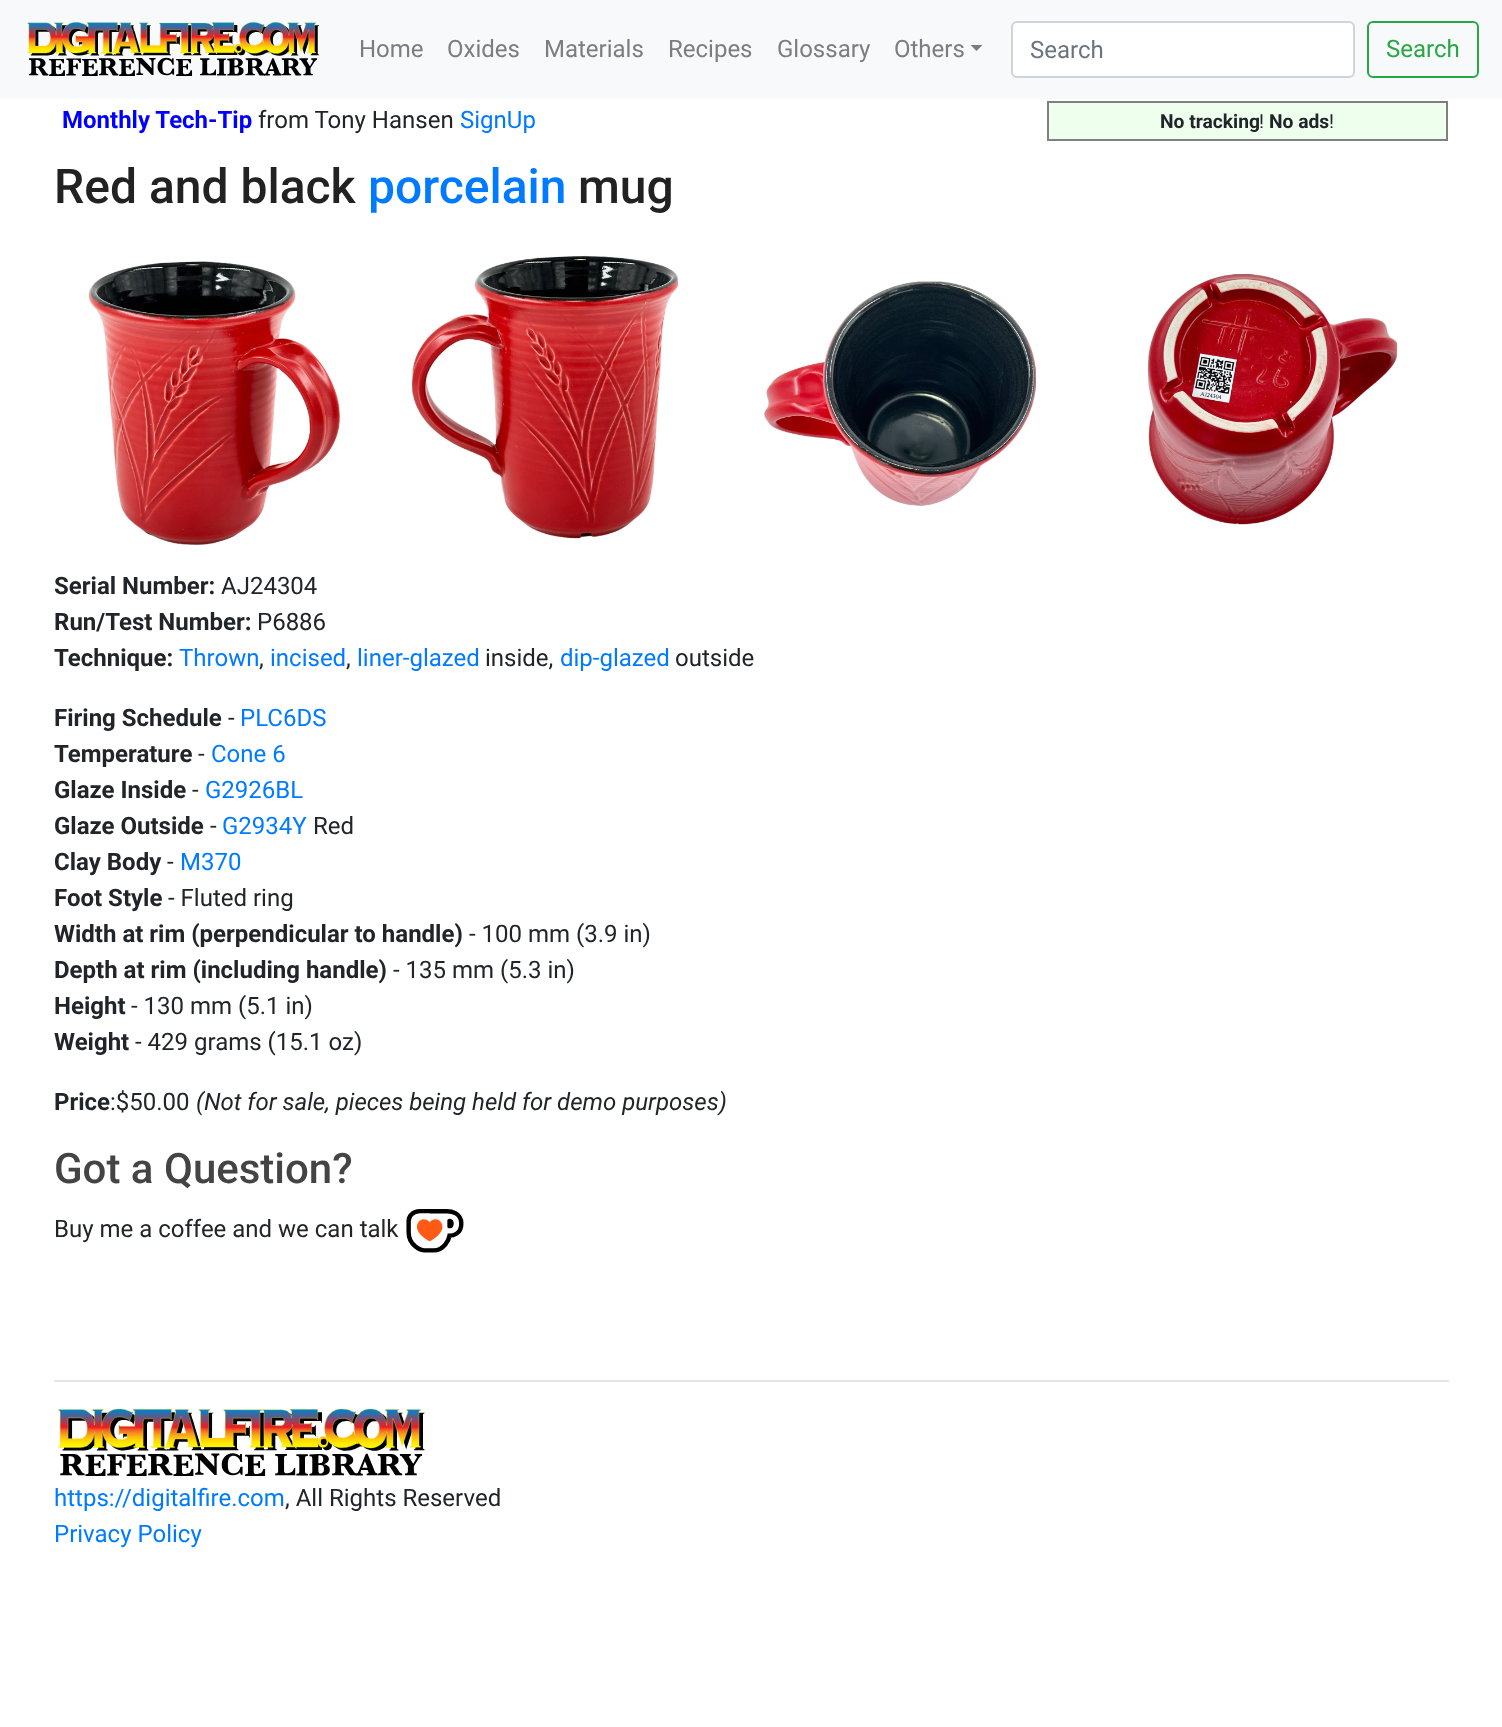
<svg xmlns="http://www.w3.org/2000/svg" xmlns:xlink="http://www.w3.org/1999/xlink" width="1502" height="1727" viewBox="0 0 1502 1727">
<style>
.cls-1{font:24px Roboto;fill:#7c7d7d}
.cls-2{font:24px Roboto;fill:#6c757d}
.cls-3{font:24px Roboto;fill:#28a745}
.cls-4{font:bold 24px Roboto;fill:#0000ff}
.cls-5{font:24px Roboto;fill:#212529}
.cls-6{font:24px Roboto;fill:#007bff}
.cls-7{font:bold 19.25px Roboto;fill:#212529}
.cls-8{font:19.25px Roboto;fill:#212529}
.cls-9{font:500 48px Roboto;fill:#222222}
.cls-10{font:500 48px Roboto;fill:#007bff}
.cls-11{font:bold 24px Roboto;fill:#212529}
.cls-12{font:italic 24px Roboto;fill:#212529}
.cls-13{font:500 42px Roboto;fill:#444444}
</style>
<rect width="100%" height="100%" fill="#ffffff"/>
<rect fill="#f8f9fa" x="0" y="0" width="1502" height="99"/>
<image xlink:href="image0.png" x="27" y="21" width="292" height="55"/>
<path fill="#7c7d7d" d="M970.5 45H982.5L976.5 51Z"/>
<rect fill="#ffffff" stroke="#ced4da" stroke-width="2" x="1012" y="22" width="342" height="55" rx="5"/>
<rect fill="none" stroke="#28a745" stroke-width="2" x="1368" y="22" width="110" height="55" rx="5"/>
<rect fill="#eeffee" stroke="#808080" stroke-width="2" x="1048" y="102" width="399" height="38"/>
<image xlink:href="image1.png" x="88" y="261" width="252" height="284"/>
<image xlink:href="image2.png" x="411" y="255" width="268" height="284"/>
<image xlink:href="image3.png" x="764" y="281" width="273" height="225"/>
<image xlink:href="image4.png" x="1147" y="273" width="251" height="252"/>
<image xlink:href="image5.png" x="406" y="1209" width="58" height="44"/>
<rect fill="#e6e6e6" x="54" y="1380" width="1395" height="2"/>
<image xlink:href="image6.png" x="58" y="1408" width="367" height="68"/>
<text class="cls-1" x="359" y="57">Home</text>
<text class="cls-1" x="447" y="57">Oxides</text>
<text class="cls-1" x="544" y="57">Materials</text>
<text class="cls-1" x="668" y="57">Recipes</text>
<text class="cls-1" x="777" y="57">Glossary</text>
<text class="cls-1" x="894" y="57">Others</text>
<text class="cls-2" x="1030" y="58">Search</text>
<text class="cls-3" x="1386" y="57">Search</text>
<text class="cls-4" x="62" y="128">Monthly Tech-Tip</text>
<text class="cls-5" x="258" y="128">from Tony Hansen</text>
<text class="cls-6" x="460" y="128">SignUp</text>
<text class="cls-7" x="1160" y="128">No tracking</text>
<text class="cls-8" x="1259" y="128">!</text>
<text class="cls-7" x="1269" y="128">No ads</text>
<text class="cls-8" x="1329" y="128">!</text>
<text class="cls-9" x="54" y="203">Red and black</text>
<text class="cls-10" x="368" y="203">porcelain</text>
<text class="cls-9" x="578" y="203">mug</text>
<text class="cls-11" x="54" y="594">Serial Number:</text>
<text class="cls-5" x="221" y="594">AJ24304</text>
<text class="cls-11" x="54" y="630">Run/Test Number:</text>
<text class="cls-5" x="257" y="630">P6886</text>
<text class="cls-11" x="54" y="666">Technique:</text>
<text class="cls-6" x="179" y="666">Thrown</text>
<text class="cls-5" x="259" y="666">,</text>
<text class="cls-6" x="270" y="666">incised</text>
<text class="cls-5" x="346" y="666">,</text>
<text class="cls-6" x="357" y="666">liner-glazed</text>
<text class="cls-5" x="485" y="666">inside,</text>
<text class="cls-6" x="560" y="666">dip-glazed</text>
<text class="cls-5" x="675" y="666">outside</text>
<text class="cls-11" x="54" y="726">Firing Schedule</text>
<text class="cls-5" x="228" y="726">-</text>
<text class="cls-6" x="240" y="726">PLC6DS</text>
<text class="cls-11" x="54" y="762">Temperature</text>
<text class="cls-5" x="198" y="762">-</text>
<text class="cls-6" x="211" y="762">Cone 6</text>
<text class="cls-11" x="54" y="798">Glaze Inside</text>
<text class="cls-5" x="192" y="798">-</text>
<text class="cls-6" x="205" y="798">G2926BL</text>
<text class="cls-11" x="54" y="834">Glaze Outside</text>
<text class="cls-5" x="210" y="834">-</text>
<text class="cls-6" x="222" y="834">G2934Y</text>
<text class="cls-5" x="313" y="834">Red</text>
<text class="cls-11" x="54" y="870">Clay Body</text>
<text class="cls-5" x="167" y="870">-</text>
<text class="cls-6" x="180" y="870">M370</text>
<text class="cls-11" x="54" y="906">Foot Style</text>
<text class="cls-5" x="168" y="906">- Fluted ring</text>
<text class="cls-11" x="54" y="942">Width at rim (perpendicular to handle)</text>
<text class="cls-5" x="469" y="942">- 100 mm (3.9 in)</text>
<text class="cls-11" x="54" y="978">Depth at rim (including handle)</text>
<text class="cls-5" x="393" y="978">- 135 mm (5.3 in)</text>
<text class="cls-11" x="54" y="1014">Height</text>
<text class="cls-5" x="131" y="1014">- 130 mm (5.1 in)</text>
<text class="cls-11" x="54" y="1050">Weight</text>
<text class="cls-5" x="135" y="1050">- 429 grams (15.1 oz)</text>
<text class="cls-11" x="54" y="1110">Price</text>
<text class="cls-5" x="110" y="1110">:$50.00</text>
<text class="cls-12" x="196" y="1110">(Not for sale, pieces being held for demo purposes)</text>
<text class="cls-13" x="54" y="1183">Got a Question?</text>
<text class="cls-5" x="54" y="1237">Buy me a coffee and we can talk</text>
<text class="cls-6" x="54" y="1506">https://digitalfire.com</text>
<text class="cls-5" x="285" y="1506">, All Rights Reserved</text>
<text class="cls-6" x="54" y="1542">Privacy Policy</text>
</svg>
